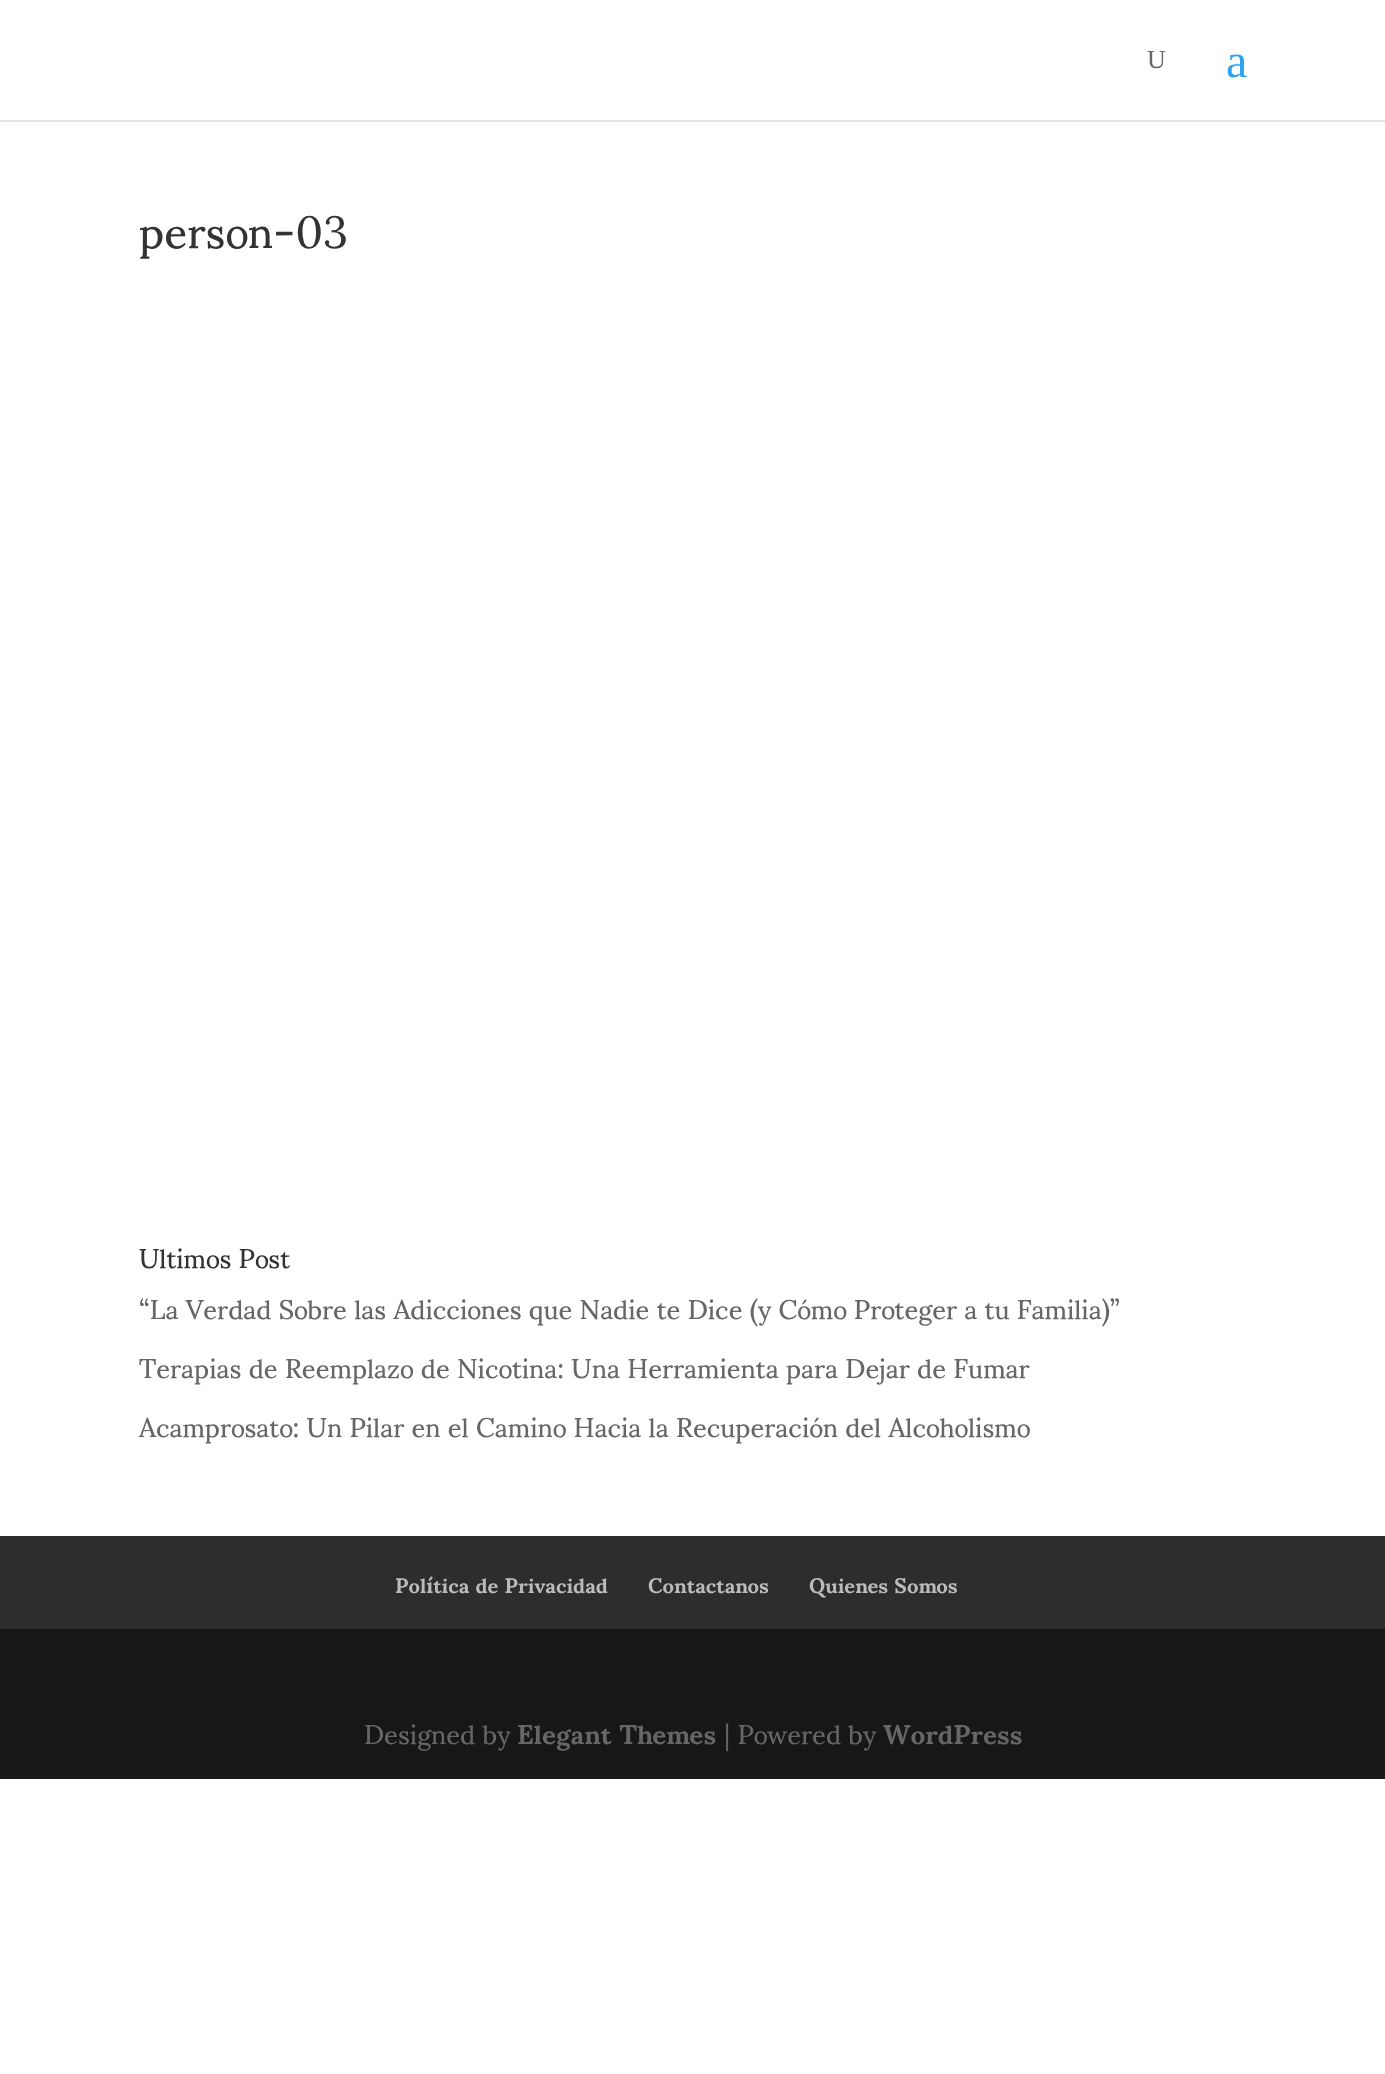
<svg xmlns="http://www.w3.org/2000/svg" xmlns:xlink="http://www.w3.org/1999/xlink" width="1385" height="2074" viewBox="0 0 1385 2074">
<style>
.cls-1{font:26px Liberation Serif;fill:#666666}
.cls-2{font:48px Liberation Serif;fill:#2ea3f2}
.cls-3{font:45px Sumana;fill:#333333}
.cls-4{font:27px Sumana;fill:#333333}
.cls-5{font:27px Sumana;fill:#666666}
.cls-6{font:bold 21px Sumana;fill:#bbbbbb}
.cls-7{font:bold 27px Sumana;fill:#666666}
</style>
<rect width="100%" height="100%" fill="#ffffff"/>
<rect fill="#e6e6e6" x="0" y="120" width="1385" height="2"/>
<rect fill="#2d2d2d" x="0" y="1536" width="1385" height="93"/>
<rect fill="#171717" x="0" y="1629" width="1385" height="150"/>
<text class="cls-1" x="1147" y="68">U</text>
<text class="cls-2" x="1226" y="77">a</text>
<text class="cls-3" x="139" y="248">person-03</text>
<text class="cls-4" x="139" y="1268">Ultimos Post</text>
<text class="cls-5" x="139" y="1319">“La Verdad Sobre las Adicciones que Nadie te Dice (y Cómo Proteger a tu Familia)”</text>
<text class="cls-5" x="139" y="1378">Terapias de Reemplazo de Nicotina: Una Herramienta para Dejar de Fumar</text>
<text class="cls-5" x="139" y="1437">Acamprosato: Un Pilar en el Camino Hacia la Recuperación del Alcoholismo</text>
<text class="cls-6" x="395" y="1593">Política de Privacidad</text>
<text class="cls-6" x="648" y="1593">Contactanos</text>
<text class="cls-6" x="809" y="1593">Quienes Somos</text>
<text class="cls-5" x="364" y="1744">Designed by</text>
<text class="cls-7" x="517" y="1744">Elegant Themes</text>
<text class="cls-5" x="724" y="1744">| Powered by</text>
<text class="cls-7" x="883" y="1744">WordPress</text>
</svg>
